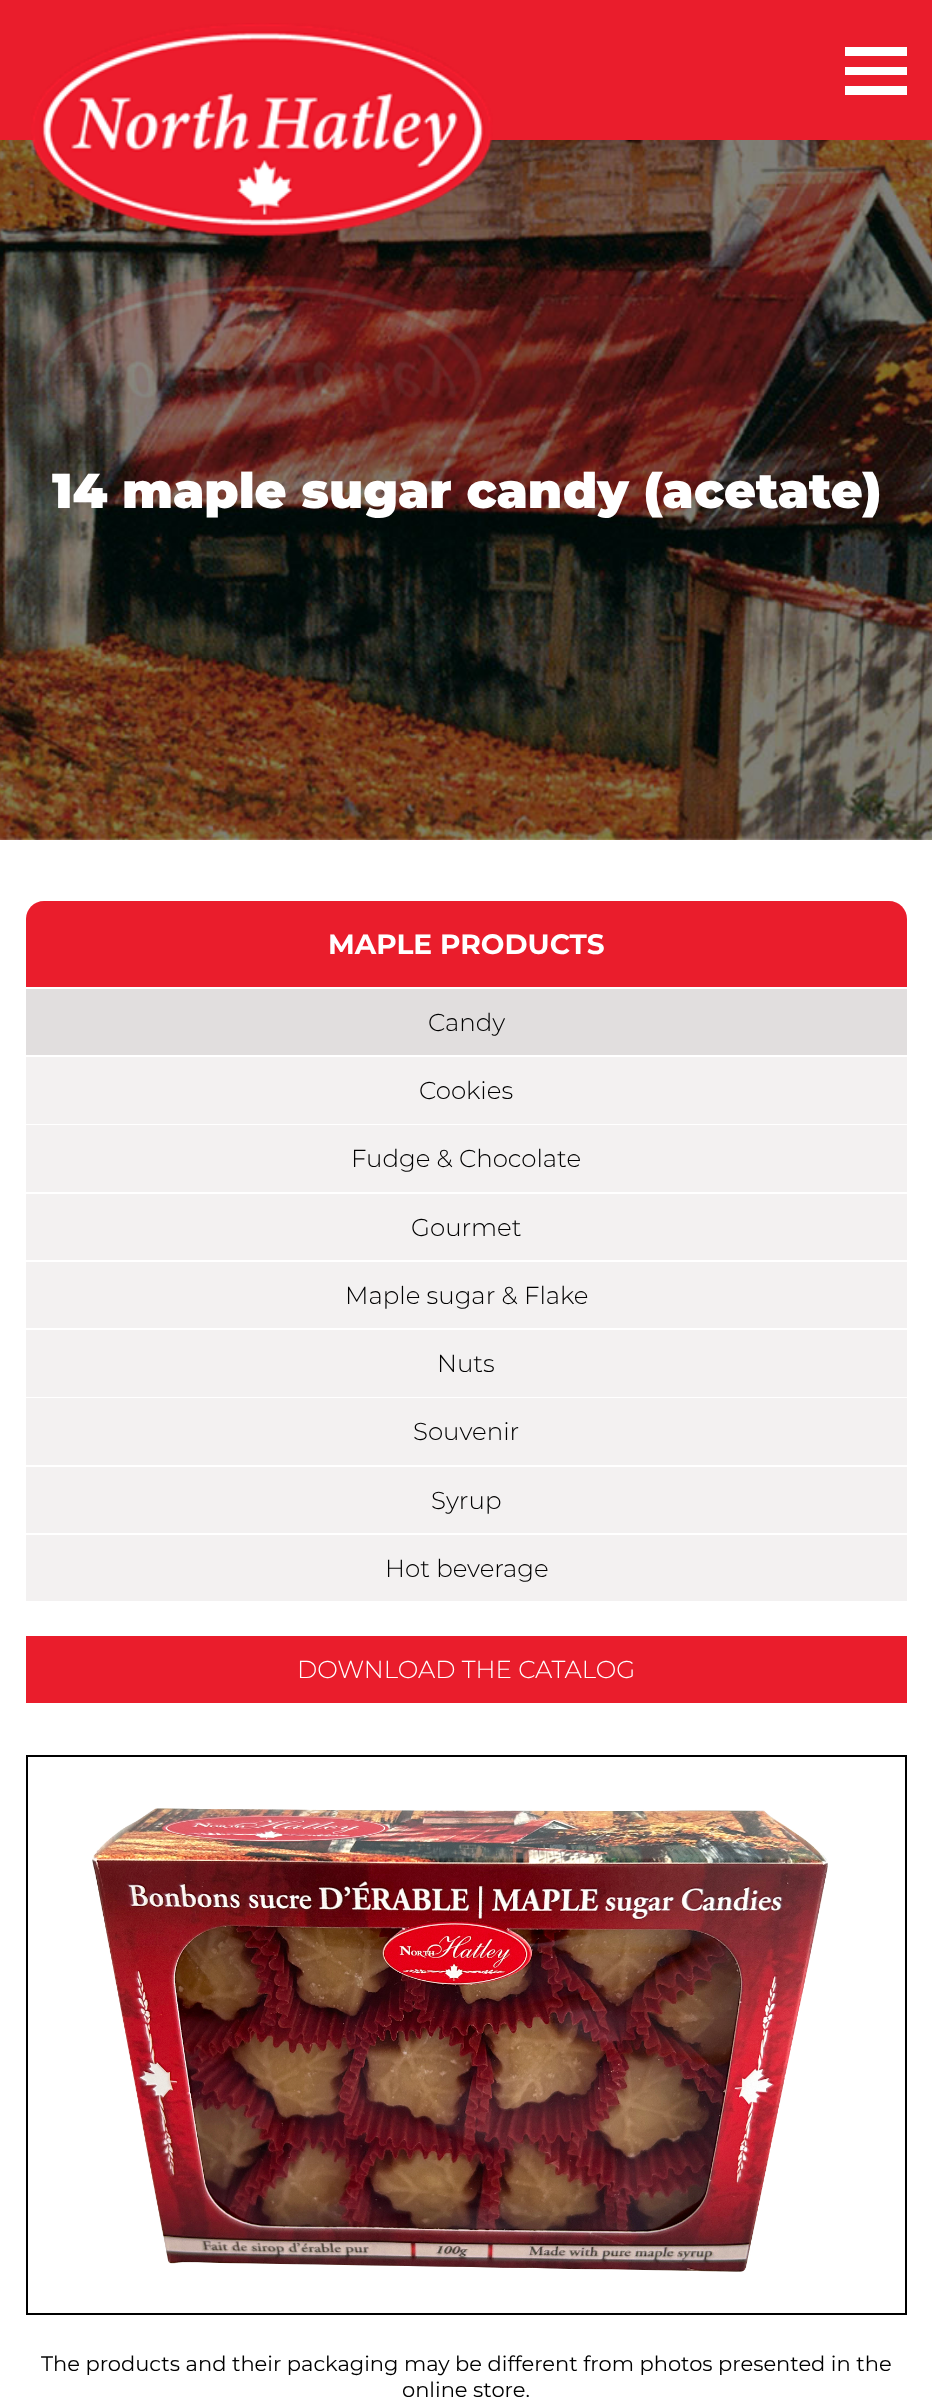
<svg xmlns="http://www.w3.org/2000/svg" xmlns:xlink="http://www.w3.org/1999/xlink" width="932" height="2397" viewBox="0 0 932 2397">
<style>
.cls-1{font:900 49px Montserrat;fill:#ffffff}
.cls-2{font:bold 28px Montserrat;fill:#ffffff}
.cls-3{font:300 24.5px Montserrat;fill:#000000}
.cls-4{font:300 24.5px Montserrat;fill:#ffffff}
.cls-5{font:21px Montserrat;fill:#000000}
</style>
<rect width="100%" height="100%" fill="#ffffff"/>
<rect fill="#ea1d2c" x="0" y="0" width="932" height="140"/>
<image xlink:href="image1.png" x="0" y="140" width="932" height="700"/>
<image xlink:href="image0.png" x="31" y="23" width="462" height="423"/>
<rect fill="#ffffff" x="845" y="47" width="62" height="9"/>
<rect fill="#ffffff" x="845" y="67" width="62" height="8"/>
<rect fill="#ffffff" x="845" y="86" width="62" height="9"/>
<path fill="#ea1d2c" d="M44 901H889C899 901 907 909 907 919V987H26V919C26 909 34 901 44 901Z"/>
<rect fill="#e1dede" x="26" y="989" width="881" height="66"/>
<rect fill="#f3f1f1" x="26" y="1057" width="881" height="67"/>
<rect fill="#f3f1f1" x="26" y="1125" width="881" height="67"/>
<rect fill="#f3f1f1" x="26" y="1194" width="881" height="66"/>
<rect fill="#f3f1f1" x="26" y="1262" width="881" height="66"/>
<rect fill="#f3f1f1" x="26" y="1330" width="881" height="67"/>
<rect fill="#f3f1f1" x="26" y="1398" width="881" height="67"/>
<rect fill="#f3f1f1" x="26" y="1467" width="881" height="66"/>
<rect fill="#f3f1f1" x="26" y="1535" width="881" height="66"/>
<rect fill="#ea1d2c" x="26" y="1636" width="881" height="67"/>
<rect fill="none" stroke="#000000" stroke-width="2" x="27" y="1756" width="879" height="558"/>
<image xlink:href="image2.png" x="92" y="1808" width="736" height="464"/>
<text class="cls-1" x="52" y="508">14 maple sugar candy (acetate)</text>
<text class="cls-2" x="328" y="954">MAPLE PRODUCTS</text>
<text class="cls-3" x="428" y="1031">Candy</text>
<text class="cls-3" x="419" y="1099">Cookies</text>
<text class="cls-3" x="351" y="1167">Fudge &amp; Chocolate</text>
<text class="cls-3" x="411" y="1236">Gourmet</text>
<text class="cls-3" x="345" y="1304">Maple sugar &amp; Flake</text>
<text class="cls-3" x="437" y="1372">Nuts</text>
<text class="cls-3" x="413" y="1440">Souvenir</text>
<text class="cls-3" x="431" y="1509">Syrup</text>
<text class="cls-3" x="385" y="1577">Hot beverage</text>
<text class="cls-4" x="297" y="1678">DOWNLOAD THE CATALOG</text>
<text class="cls-5" x="41" y="2371">The products and their packaging may be different from photos presented in the</text>
<text class="cls-5" x="402" y="2397">online store.</text>
</svg>
